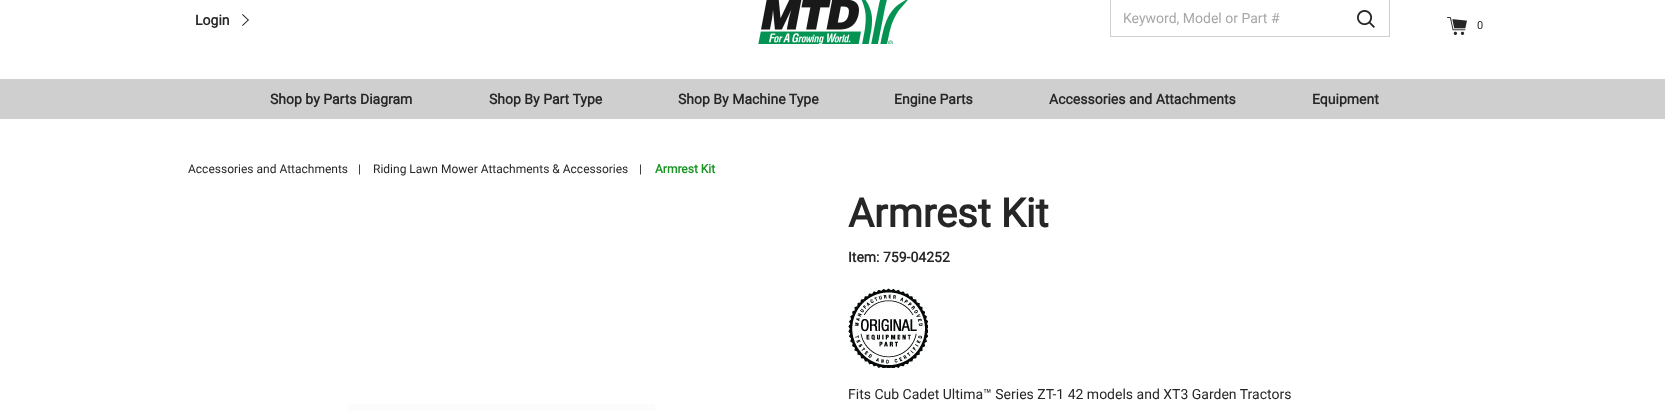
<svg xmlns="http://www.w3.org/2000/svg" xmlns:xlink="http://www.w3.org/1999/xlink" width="1665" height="411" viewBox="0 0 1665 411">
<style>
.cls-1{font:bold 14px Roboto;fill:#262626}
.cls-2{font:14px Roboto;fill:#a8a7a7}
.cls-3{font:11px Roboto;fill:#262626}
.cls-4{font:12px Roboto;fill:#262626}
.cls-5{font:bold 12px Roboto;fill:#199422}
.cls-6{font:bold 40px Roboto;fill:#262626}
.cls-7{font:14px Roboto;fill:#262626}
</style>
<rect width="100%" height="100%" fill="#ffffff"/>
<image xlink:href="image0.png" x="758" y="0" width="150" height="44"/>
<image xlink:href="image1.png" x="242" y="14" width="7" height="12"/>
<rect fill="none" stroke="#d0cfcf" x="1110.5" y="-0.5" width="279" height="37"/>
<image xlink:href="image2.png" x="1357" y="10" width="18" height="18"/>
<image xlink:href="image3.png" x="1447" y="17" width="20" height="18"/>
<rect fill="#d0cfcf" x="0" y="79" width="1665" height="40"/>
<image xlink:href="image4.png" x="848" y="288" width="80" height="80"/>
<rect fill="#fcfcfc" x="348" y="404" width="307" height="7"/>
<text class="cls-1" x="195" y="25">Login</text>
<text class="cls-2" x="1123" y="23">Keyword, Model or Part #</text>
<text class="cls-3" x="1477" y="29">0</text>
<text class="cls-1" x="270" y="104">Shop by Parts Diagram</text>
<text class="cls-1" x="489" y="104">Shop By Part Type</text>
<text class="cls-1" x="678" y="104">Shop By Machine Type</text>
<text class="cls-1" x="894" y="104">Engine Parts</text>
<text class="cls-1" x="1049" y="104">Accessories and Attachments</text>
<text class="cls-1" x="1312" y="104">Equipment</text>
<text class="cls-4" x="188" y="173">Accessories and Attachments</text>
<text class="cls-4" x="358" y="173">|</text>
<text class="cls-4" x="373" y="173">Riding Lawn Mower Attachments &amp; Accessories</text>
<text class="cls-4" x="639" y="173">|</text>
<text class="cls-5" x="655" y="173">Armrest Kit</text>
<text class="cls-6" x="848" y="227">Armrest Kit</text>
<text class="cls-1" x="848" y="262">Item: 759-04252</text>
<text class="cls-7" x="848" y="399">Fits Cub Cadet Ultima™ Series ZT-1 42 models and XT3 Garden Tractors</text>
</svg>
